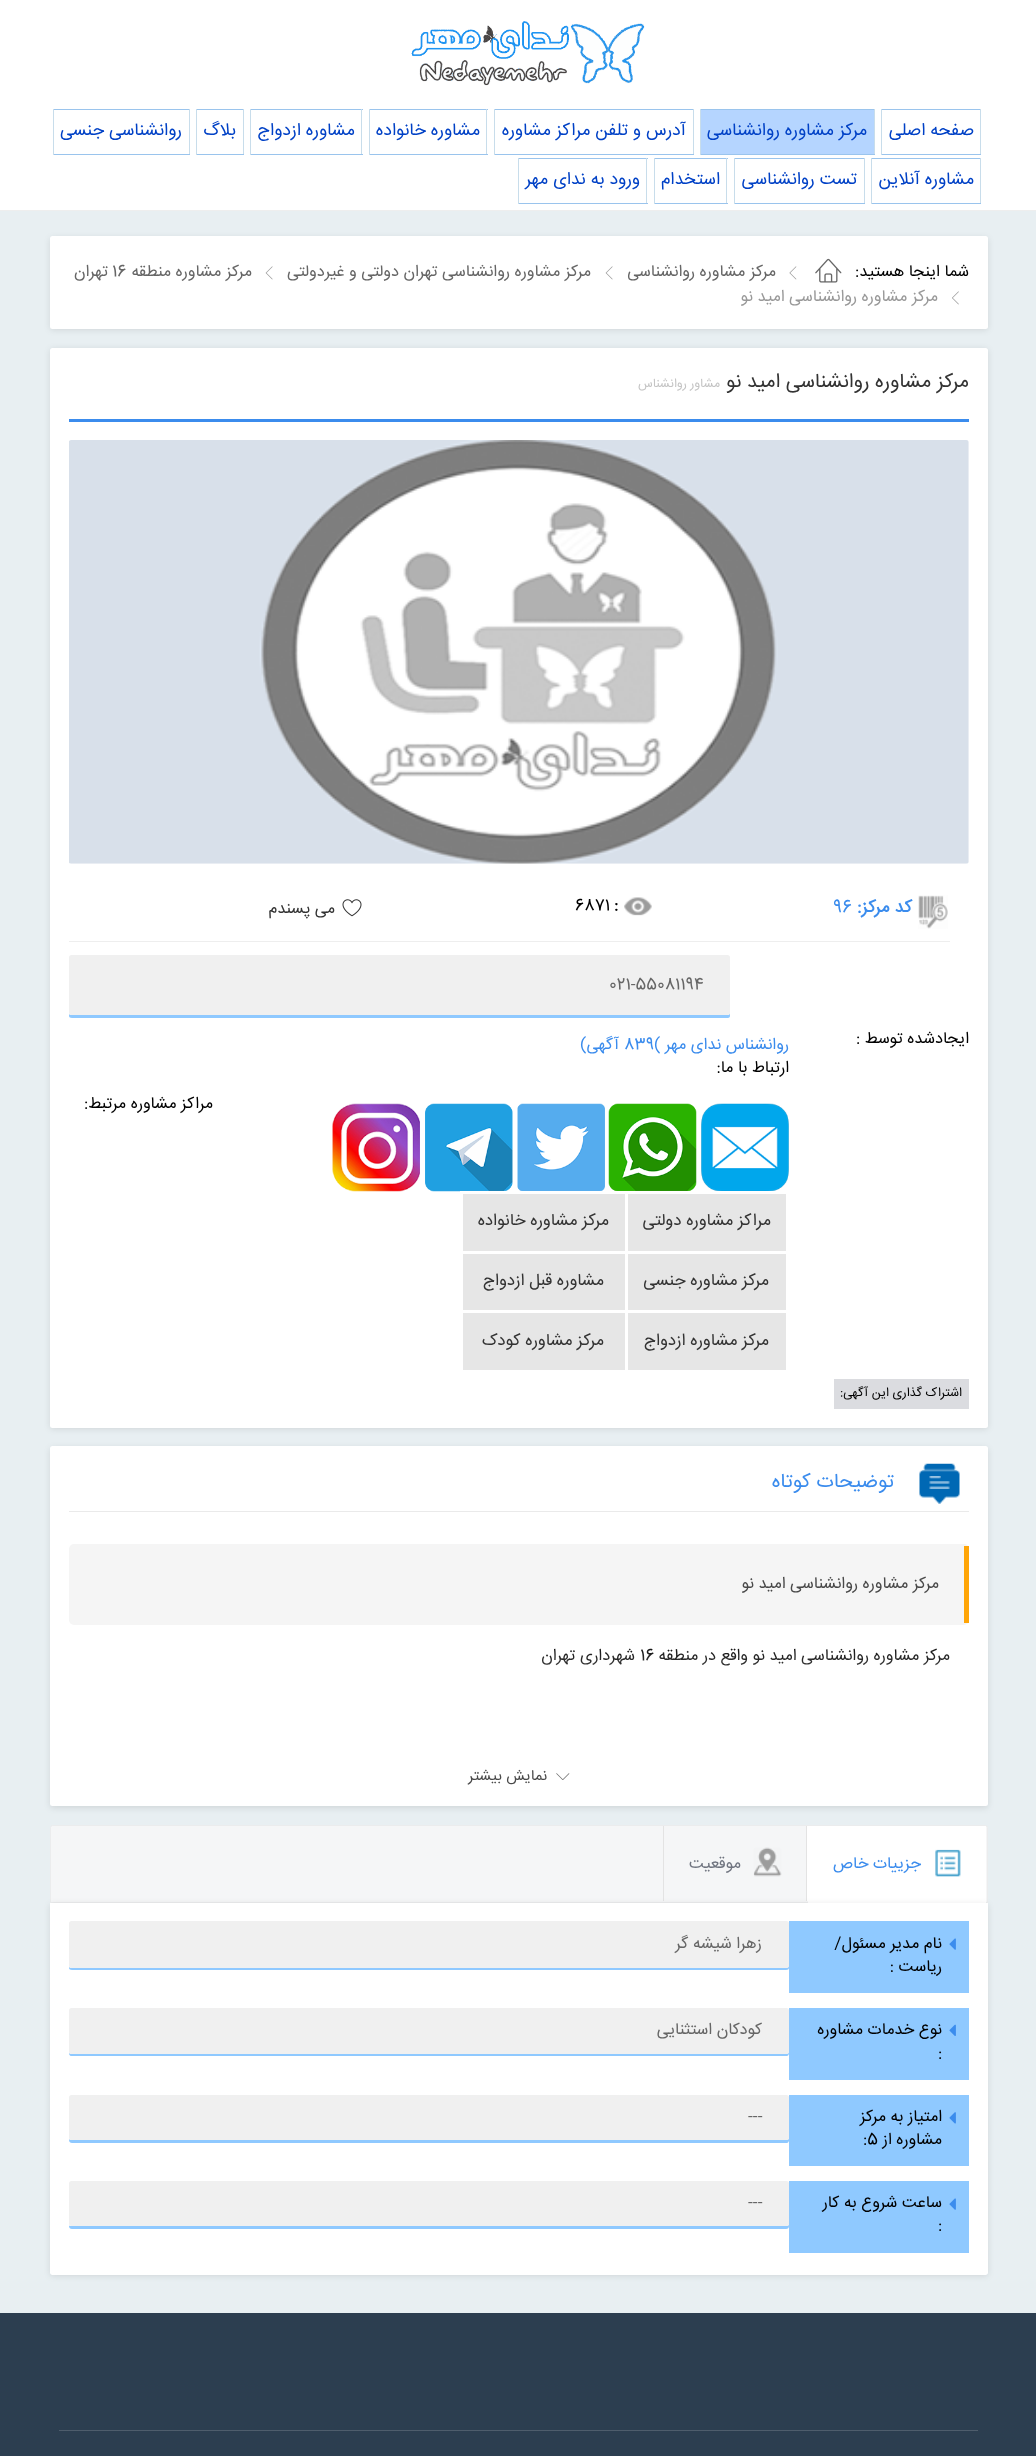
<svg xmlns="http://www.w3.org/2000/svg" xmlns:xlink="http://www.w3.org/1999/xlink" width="1036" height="2456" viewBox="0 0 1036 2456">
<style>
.cls-1{font:17.5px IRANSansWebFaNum;direction:rtl;fill:#0041c6}
.cls-2{font:16.25px IRANSansWebFaNum;direction:rtl;fill:#000000}
.cls-3{font:16.25px IRANSansWebFaNum;direction:rtl;fill:#666666}
.cls-4{font:16.25px IRANSansWebFaNum;fill:#666666}
.cls-5{font:16.25px IRANSansWebFaNum;direction:rtl;fill:#999999}
.cls-6{font:20px IRANSansWebFaNum;direction:rtl;fill:#333333}
.cls-7{font:12.5px IRANSansWebFaNum;direction:rtl;fill:#c4c4c4}
.cls-8{font:bold 17.5px IRANSansWebFaNum;direction:rtl;fill:#3b8ced}
.cls-9{font:17.5px IRANSansWebFaNum;fill:#3b8ced}
.cls-10{font:bold 16.25px IRANSansWebFaNum;fill:#000000}
.cls-11{font:16.25px IRANSansWebFaNum;fill:#000000}
.cls-12{font:16.25px IRANSansWebFaNum;direction:rtl;fill:#333333}
.cls-13{font:16.25px IRANSansWebFaNum;direction:rtl;fill:#3b8ced}
.cls-14{font:16.25px IRANSansWebFaNum;fill:#3b8ced}
.cls-15{font:16.75px IRANSansWebFaNum;direction:rtl;fill:#333333}
.cls-16{font:12.5px IRANSansWebFaNum;direction:rtl;fill:#000000}
.cls-17{font:20px IRANSansWebFaNum;direction:rtl;fill:#3b8ced}
.cls-18{font:16.25px IRANSansWebFaNum;direction:rtl;fill:#494949}
.cls-19{font:15px IRANSansWebFaNum;direction:rtl;fill:#494949}
.cls-20{font:16.25px IRANSansWebFaNum;direction:rtl;fill:#707580}
</style>
<defs>
<linearGradient id="g1" gradientUnits="userSpaceOnUse" x1="519" y1="1638" x2="519" y2="1769"><stop offset="0" stop-color="#ffffff" stop-opacity="0"/><stop offset="1" stop-color="#ffffff"/></linearGradient>
</defs>
<rect width="100%" height="100%" fill="#e8eff2"/>
<rect fill="#ffffff" x="0" y="0" width="1036" height="210"/>
<rect fill="#eeeeee" x="0" y="210" width="1036" height="1"/>
<image xlink:href="image0.png" x="411" y="21" width="234" height="65"/>
<rect fill="#9ac4ed" x="881" y="109" width="100" height="1"/>
<rect fill="#c8ddeb" x="980" y="109" width="1" height="46"/>
<rect fill="#9ac4ed" x="881" y="154" width="100" height="1"/>
<rect fill="#c8ddeb" x="881" y="109" width="1" height="46"/>
<rect fill="#b5d5ff" x="701" y="110" width="173" height="44"/>
<rect fill="#9ac4ed" x="700" y="109" width="175" height="1"/>
<rect fill="#c8ddeb" x="874" y="109" width="1" height="46"/>
<rect fill="#9ac4ed" x="700" y="154" width="175" height="1"/>
<rect fill="#c8ddeb" x="700" y="109" width="1" height="46"/>
<rect fill="#9ac4ed" x="494" y="109" width="200" height="1"/>
<rect fill="#c8ddeb" x="693" y="109" width="1" height="46"/>
<rect fill="#9ac4ed" x="494" y="154" width="200" height="1"/>
<rect fill="#c8ddeb" x="494" y="109" width="1" height="46"/>
<rect fill="#9ac4ed" x="369" y="109" width="119" height="1"/>
<rect fill="#c8ddeb" x="486" y="109" width="1" height="46"/>
<rect fill="#9ac4ed" x="369" y="154" width="119" height="1"/>
<rect fill="#c8ddeb" x="369" y="109" width="1" height="46"/>
<rect fill="#9ac4ed" x="250" y="109" width="113" height="1"/>
<rect fill="#c8ddeb" x="361" y="109" width="1" height="46"/>
<rect fill="#9ac4ed" x="250" y="154" width="113" height="1"/>
<rect fill="#c8ddeb" x="250" y="109" width="1" height="46"/>
<rect fill="#9ac4ed" x="196" y="109" width="48" height="1"/>
<rect fill="#c8ddeb" x="243" y="109" width="1" height="46"/>
<rect fill="#9ac4ed" x="196" y="154" width="48" height="1"/>
<rect fill="#c8ddeb" x="196" y="109" width="1" height="46"/>
<rect fill="#9ac4ed" x="53" y="109" width="137" height="1"/>
<rect fill="#c8ddeb" x="189" y="109" width="1" height="46"/>
<rect fill="#9ac4ed" x="53" y="154" width="137" height="1"/>
<rect fill="#c8ddeb" x="53" y="109" width="1" height="46"/>
<rect fill="#9ac4ed" x="871" y="158" width="110" height="1"/>
<rect fill="#c8ddeb" x="980" y="158" width="1" height="46"/>
<rect fill="#9ac4ed" x="871" y="203" width="110" height="1"/>
<rect fill="#c8ddeb" x="871" y="158" width="1" height="46"/>
<rect fill="#9ac4ed" x="734" y="158" width="131" height="1"/>
<rect fill="#c8ddeb" x="864" y="158" width="1" height="46"/>
<rect fill="#9ac4ed" x="734" y="203" width="131" height="1"/>
<rect fill="#c8ddeb" x="734" y="158" width="1" height="46"/>
<rect fill="#9ac4ed" x="654" y="158" width="74" height="1"/>
<rect fill="#c8ddeb" x="726" y="158" width="1" height="46"/>
<rect fill="#9ac4ed" x="654" y="203" width="74" height="1"/>
<rect fill="#c8ddeb" x="654" y="158" width="1" height="46"/>
<rect fill="#9ac4ed" x="518" y="158" width="130" height="1"/>
<rect fill="#c8ddeb" x="646" y="158" width="1" height="46"/>
<rect fill="#9ac4ed" x="518" y="203" width="130" height="1"/>
<rect fill="#c8ddeb" x="518" y="158" width="1" height="46"/>
<rect fill="#000000" fill-opacity="0.1" filter="blur(3px)" x="50" y="238" width="938" height="92" rx="2.5"/>
<rect fill="#ffffff" x="50" y="236" width="938" height="93" rx="2.5"/>
<image xlink:href="image1.png" x="815" y="258" width="27" height="25"/>
<image xlink:href="image2.png" x="789" y="266" width="8" height="14"/>
<image xlink:href="image3.png" x="605" y="266" width="8" height="14"/>
<image xlink:href="image3.png" x="265" y="266" width="8" height="14"/>
<image xlink:href="image4.png" x="952" y="291" width="7" height="14"/>
<rect fill="#000000" fill-opacity="0.1" filter="blur(3px)" x="50" y="349" width="938" height="1080" rx="2.5"/>
<rect fill="#ffffff" x="50" y="348" width="938" height="1080" rx="2.5"/>
<rect fill="#3b8ced" x="69" y="419" width="900" height="3"/>
<image xlink:href="image5.png" x="69" y="440" width="900" height="424"/>
<rect fill="#eeeeee" x="69" y="941" width="881" height="1"/>
<image xlink:href="image6.png" x="918" y="895" width="30" height="34"/>
<image xlink:href="image7.png" x="624" y="897" width="28" height="19"/>
<image xlink:href="image8.png" x="342" y="899" width="20" height="18"/>
<path fill="#8fc9ff" d="M69 1014V1016C69 1017 70 1018 72 1018H728C729 1018 730 1017 730 1016V1012C730 1014 729 1015 728 1015H71C70 1015 69 1014 69 1014Z"/>
<rect fill="#f0f0f0" x="69" y="955" width="661" height="60" rx="2.5"/>
<image xlink:href="image9.png" x="701" y="1103" width="88" height="88"/>
<image xlink:href="image10.png" x="608" y="1103" width="89" height="88"/>
<image xlink:href="image11.png" x="517" y="1103" width="88" height="88"/>
<image xlink:href="image12.png" x="425" y="1103" width="88" height="89"/>
<image xlink:href="image13.png" x="332" y="1103" width="88" height="89"/>
<rect fill="#e6e6e6" x="628" y="1194" width="158" height="57"/>
<rect fill="#e6e6e6" x="463" y="1194" width="162" height="57"/>
<rect fill="#ffffff" x="460" y="1191" width="47" height="1"/>
<rect fill="#e6e6e6" x="628" y="1254" width="158" height="56"/>
<rect fill="#e6e6e6" x="463" y="1254" width="162" height="56"/>
<rect fill="#e6e6e6" x="628" y="1313" width="158" height="57"/>
<rect fill="#e6e6e6" x="463" y="1313" width="162" height="57"/>
<rect fill="#dbdce0" x="834" y="1379" width="135" height="30"/>
<rect fill="#000000" fill-opacity="0.1" filter="blur(3px)" x="50" y="1448" width="938" height="360" rx="2.5"/>
<rect fill="#ffffff" x="50" y="1446" width="938" height="360" rx="2.5"/>
<rect fill="#eaeaea" x="69" y="1511" width="900" height="1"/>
<image xlink:href="image14.png" x="919" y="1463" width="41" height="41"/>
<rect fill="#f5f5f5" x="69" y="1544" width="900" height="81" rx="5"/>
<rect fill="#ffa507" x="964" y="1546" width="5" height="77"/>
<image xlink:href="image15.png" x="556" y="1773" width="14" height="7"/>
<path fill="#f5f6f7" stroke="#ebeced" d="M52.5 1825.5H985.5C986.5 1825.5 987.5 1826.5 987.5 1827.5V1902.5H50.5V1827.5C50.5 1826.5 51.5 1825.5 52.5 1825.5Z"/>
<rect fill="#ffffff" x="807" y="1826" width="179" height="75"/>
<rect fill="#e3e3e3" x="806" y="1826" width="1" height="75"/>
<image xlink:href="image16.png" x="935" y="1849" width="26" height="28"/>
<rect fill="#ffffff" x="808" y="1901" width="178" height="2"/>
<rect fill="#e3e3e3" x="663" y="1826" width="1" height="75"/>
<image xlink:href="image17.png" x="753" y="1847" width="29" height="30"/>
<rect fill="#000000" fill-opacity="0.1" filter="blur(3px)" x="50" y="1904" width="938" height="372" rx="2.5"/>
<path fill="#ffffff" d="M50 1903H988V2272.5C988 2274 987 2275 985.5 2275H52.5C51 2275 50 2274 50 2272.5Z"/>
<path fill="#8fc9ff" d="M789 1990V1993H969V1924V1990Z"/>
<rect fill="#8fc9ff" x="789" y="1921" width="180" height="69"/>
<image xlink:href="image18.png" x="949" y="1938" width="7" height="12"/>
<path fill="#8fc9ff" d="M69 1966V1968C69 1969 70 1970 72 1970H786C788 1970 789 1969 789 1968V1925V1965C789 1966 788 1968 786 1968H71C70 1968 69 1967 69 1966Z"/>
<rect fill="#f0f0f0" x="69" y="1921" width="720" height="47" rx="2.5"/>
<path fill="#8fc9ff" d="M789 2078V2080H969V2010V2078Z"/>
<path fill="#8fc9ff" d="M69 2052C69 2054 69 2056 72 2056H786C791 2056 789 2048 789 2047V2011V2051C789 2053 788 2054 786 2054H71C70 2054 69 2053 69 2052Z"/>
<rect fill="#8fc9ff" x="789" y="2008" width="180" height="70"/>
<image xlink:href="image19.png" x="949" y="2024" width="7" height="12"/>
<rect fill="#f0f0f0" x="69" y="2008" width="720" height="46" rx="2.5"/>
<path fill="#8fc9ff" d="M789 2164V2166H969V2098V2164Z"/>
<path fill="#8fc9ff" d="M69 2139C69 2140 69 2143 72 2143H786C791 2143 789 2135 789 2134V2099V2138C789 2139 788 2140 786 2140H71C70 2140 69 2139 69 2139Z"/>
<rect fill="#8fc9ff" x="789" y="2095" width="180" height="69"/>
<image xlink:href="image20.png" x="949" y="2112" width="7" height="12"/>
<rect fill="#f0f0f0" x="69" y="2095" width="720" height="45" rx="2.5"/>
<path fill="#8fc9ff" d="M789 2250V2253H969V2184V2250Z"/>
<rect fill="#8fc9ff" x="789" y="2181" width="180" height="69"/>
<image xlink:href="image18.png" x="949" y="2198" width="7" height="12"/>
<path fill="#8fc9ff" d="M69 2225V2226C69 2228 70 2229 72 2229H786C788 2229 789 2228 789 2226V2185V2224C789 2225 788 2226 786 2226H71C70 2226 69 2226 69 2225Z"/>
<rect fill="#f0f0f0" x="69" y="2181" width="720" height="45" rx="2.5"/>
<rect fill="#2c3e50" x="0" y="2313" width="1036" height="143"/>
<rect fill="#4e5d6c" x="59" y="2430" width="919" height="1"/>
<text class="cls-1" x="974" y="135">صفحه اصلی</text>
<text class="cls-1" x="867" y="135">مرکز مشاوره روانشناسی</text>
<text class="cls-1" x="686" y="135">آدرس و تلفن مراکز مشاوره</text>
<text class="cls-1" x="480" y="135">مشاوره خانواده</text>
<text class="cls-1" x="355" y="135">مشاوره ازدواج</text>
<text class="cls-1" x="236" y="135">بلاگ</text>
<text class="cls-1" x="182" y="135">روانشناسی جنسی</text>
<text class="cls-1" x="974" y="184">مشاوره آنلاین</text>
<text class="cls-1" x="857" y="184">تست روانشناسی</text>
<text class="cls-1" x="720" y="184">استخدام</text>
<text class="cls-1" x="640" y="184">ورود به ندای مهر</text>
<text class="cls-2" x="969" y="276">شما اینجا هستید:</text>
<text class="cls-3" x="776" y="276">مرکز مشاوره روانشناسی</text>
<text class="cls-3" x="591" y="276">مرکز مشاوره روانشناسی تهران دولتی و غیردولتی</text>
<text class="cls-3" x="252" y="276">مرکز مشاوره منطقه</text>
<text class="cls-4" x="112" y="276">16</text>
<text class="cls-3" x="108" y="276">تهران</text>
<text class="cls-5" x="938" y="301">مرکز مشاوره روانشناسی اميد نو</text>
<text class="cls-6" x="969" y="387">مرکز مشاوره روانشناسی اميد نو</text>
<text class="cls-7" x="720" y="387">مشاور روانشناس</text>
<text class="cls-8" x="912" y="912">کد مرکز:</text>
<text class="cls-9" x="833" y="912">96</text>
<text class="cls-10" x="614" y="910">:</text>
<text class="cls-11" x="575" y="910">6871</text>
<text class="cls-12" x="335" y="913">می پسندم</text>
<text class="cls-4" x="609" y="989">021-55081194</text>
<text class="cls-2" x="969" y="1043">ایجادشده توسط :</text>
<text class="cls-13" x="789" y="1049">روانشناس ندای مهر</text>
<text class="cls-14" x="624" y="1049">839(</text>
<text class="cls-13" x="619" y="1049">آگهی)</text>
<text class="cls-2" x="789" y="1072">ارتباط با ما:</text>
<text class="cls-2" x="213" y="1108">مراکز مشاوره مرتبط:</text>
<text class="cls-15" x="771" y="1225">مراکز مشاوره دولتی</text>
<text class="cls-15" x="609" y="1225">مرکز مشاوره خانواده</text>
<text class="cls-15" x="769" y="1285">مرکز مشاوره جنسی</text>
<text class="cls-15" x="604" y="1285">مشاوره قبل ازدواج</text>
<text class="cls-15" x="769" y="1345">مرکز مشاوره ازدواج</text>
<text class="cls-15" x="604" y="1345">مرکز مشاوره کودک</text>
<text class="cls-16" x="962" y="1396">اشتراک گذاری این آگهی:</text>
<text class="cls-17" x="894" y="1487">توضیحات کوتاه</text>
<text class="cls-18" x="939" y="1588">مرکز مشاوره روانشناسی امید نو</text>
<text class="cls-2" x="950" y="1660">مرکز مشاوره روانشناسی امید نو واقع در منطقه</text>
<text class="cls-11" x="640" y="1660">16</text>
<text class="cls-2" x="635" y="1660">شهرداری تهران</text>
<rect fill="url(#g1)" x="542" y="1648" width="408" height="18"/>
<text class="cls-19" x="547" y="1780">نمایش بیشتر</text>
<text class="cls-13" x="921" y="1868">جزییات خاص</text>
<text class="cls-20" x="741" y="1868">موقعیت</text>
<text class="cls-2"><tspan x="942" y="1948">نام مدیر مسئول/</tspan><tspan x="942" y="1971">ریاست :</tspan></text>
<text class="cls-3" x="762" y="1948">زهرا شيشه گر</text>
<text class="cls-2" x="942" y="2034">نوع خدمات مشاوره</text>
<text class="cls-11" x="938" y="2058">:</text>
<text class="cls-3" x="762" y="2034">کودکان استثنايی</text>
<text class="cls-2"><tspan x="942" y="2121">امتیاز به مرکز</tspan><tspan x="942" y="2144">مشاوره از</tspan></text>
<text class="cls-11" x="863" y="2144">:5</text>
<text class="cls-4" x="748" y="2121">---</text>
<text class="cls-2" x="942" y="2207">ساعت شروع به کار</text>
<text class="cls-11" x="938" y="2230">:</text>
<text class="cls-4" x="748" y="2207">---</text>
</svg>
